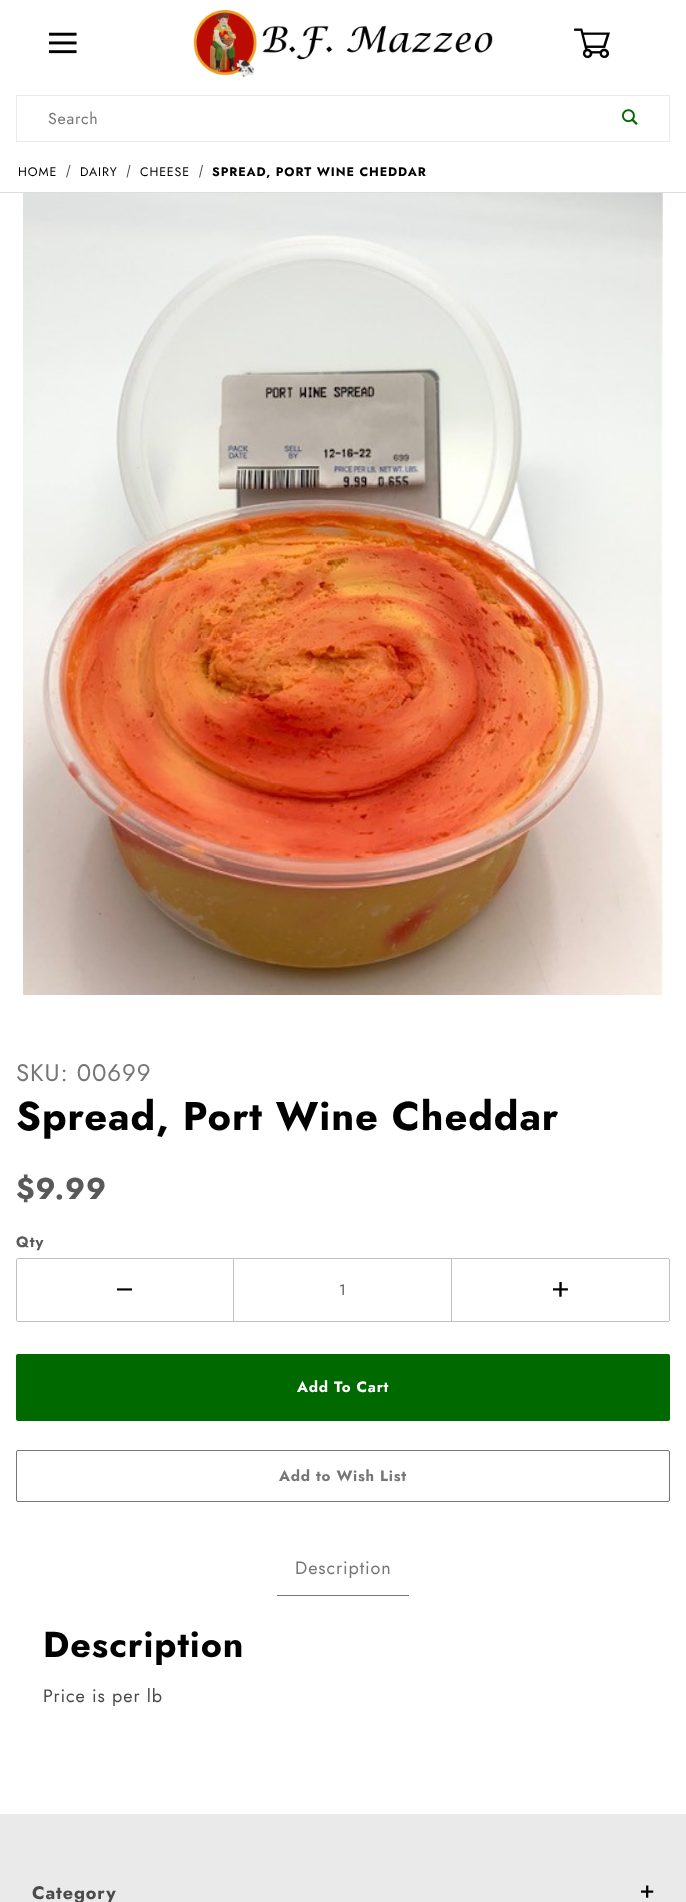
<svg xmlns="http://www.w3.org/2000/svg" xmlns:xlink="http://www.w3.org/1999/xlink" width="686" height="1902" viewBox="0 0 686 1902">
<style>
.cls-1{font:16px Jost;letter-spacing:0.75px;fill:#767676}
.cls-2{font:12.4px Jost;letter-spacing:0.9px;fill:#000000}
.cls-3{font:bold 12.4px Jost;letter-spacing:0.9px;fill:#000000}
.cls-4{font:24px Jost;letter-spacing:0.9px;fill:#767676}
.cls-5{font:bold 40px Jost;letter-spacing:0.9px;fill:#000000}
.cls-6{font:bold 30px Jost;letter-spacing:0.9px;fill:#595959}
.cls-7{font:bold 15px Jost;letter-spacing:0.9px;fill:#595959}
.cls-8{font:15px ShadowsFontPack;letter-spacing:0.75px;fill:#000000}
.cls-9{font:15px Jost;letter-spacing:0.75px;fill:#595959}
.cls-10{font:bold 15px Jost;letter-spacing:0.75px;fill:#ffffff}
.cls-11{font:bold 15px Jost;letter-spacing:0.75px;fill:#767676}
.cls-12{font:18px Jost;letter-spacing:0.9px;fill:#767676}
.cls-13{font:bold 36px Jost;letter-spacing:0.9px;fill:#000000}
.cls-14{font:18px Jost;letter-spacing:0.9px;fill:#4a4a4a}
.cls-15{font:bold 18px Jost;letter-spacing:0.9px;fill:#4a4a4a}
.cls-16{font:bold 12px ShadowsFontPack;letter-spacing:0.9px;fill:#000000}
</style>
<rect width="100%" height="100%" fill="#ffffff"/>
<image xlink:href="image0.png" x="49" y="32" width="28" height="22"/>
<image xlink:href="image1.png" x="193" y="10" width="300" height="67"/>
<image xlink:href="image2.png" x="574" y="28" width="36" height="31"/>
<rect fill="none" stroke="#eaeaea" x="16.5" y="95.5" width="653" height="46"/>
<image xlink:href="image3.png" x="622" y="109" width="16" height="16"/>
<rect fill="#dddddd" x="0" y="192" width="686" height="1"/>
<path fill="#4a4a4a" d="M69.5 165H70.5L67 177.5H66Z"/>
<path fill="#4a4a4a" d="M129.5 165H130.5L127.5 177.5H126.5Z"/>
<path fill="#4a4a4a" d="M202 165H203L200 177.5H199Z"/>
<image xlink:href="image4.png" x="23" y="193" width="640" height="802"/>
<path fill="none" stroke="#c0c0c0" d="M18 1258.5H233.5V1321.5H18C17 1321.5 16.5 1321 16.5 1320V1260C16.5 1259 17 1258.5 18 1258.5Z"/>
<rect fill="#c0c0c0" x="234" y="1258" width="435" height="1"/>
<rect fill="#c0c0c0" x="451" y="1258" width="1" height="64"/>
<rect fill="#c0c0c0" x="234" y="1321" width="435" height="1"/>
<rect fill="#c0c0c0" x="669" y="1259" width="1" height="62"/>
<rect fill="#006900" x="16" y="1354" width="654" height="67" rx="2"/>
<rect fill="none" stroke="#767676" x="16.5" y="1450.5" width="653" height="51" rx="1.5"/>
<rect fill="#767676" x="277" y="1595" width="132" height="1"/>
<rect fill="#eaeaea" x="0" y="1814" width="686" height="88"/>
<text class="cls-1" x="48" y="124">Search</text>
<text class="cls-2" x="18" y="176">HOME</text>
<text class="cls-2" x="80" y="176">DAIRY</text>
<text class="cls-2" x="140" y="176">CHEESE</text>
<text class="cls-3" x="212" y="176">SPREAD, PORT WINE CHEDDAR</text>
<text class="cls-4" x="16" y="1081">SKU: 00699</text>
<text class="cls-5" x="16" y="1130">Spread, Port Wine Cheddar</text>
<text class="cls-6" x="16" y="1199">$9.99</text>
<text class="cls-7" x="16" y="1247">Qty</text>
<text class="cls-8" x="117" y="1296">&lt;</text>
<text class="cls-9" x="339" y="1295">1</text>
<text class="cls-8" x="553" y="1296">=</text>
<text class="cls-10" x="297" y="1392">Add To Cart</text>
<text class="cls-11" x="279" y="1481">Add to Wish List</text>
<text class="cls-12" x="295" y="1574">Description</text>
<text class="cls-13" x="43" y="1657">Description</text>
<text class="cls-14" x="43" y="1702">Price is per lb</text>
<text class="cls-15" x="32" y="1899">Category</text>
<text class="cls-16" x="641" y="1897">=</text>
</svg>
